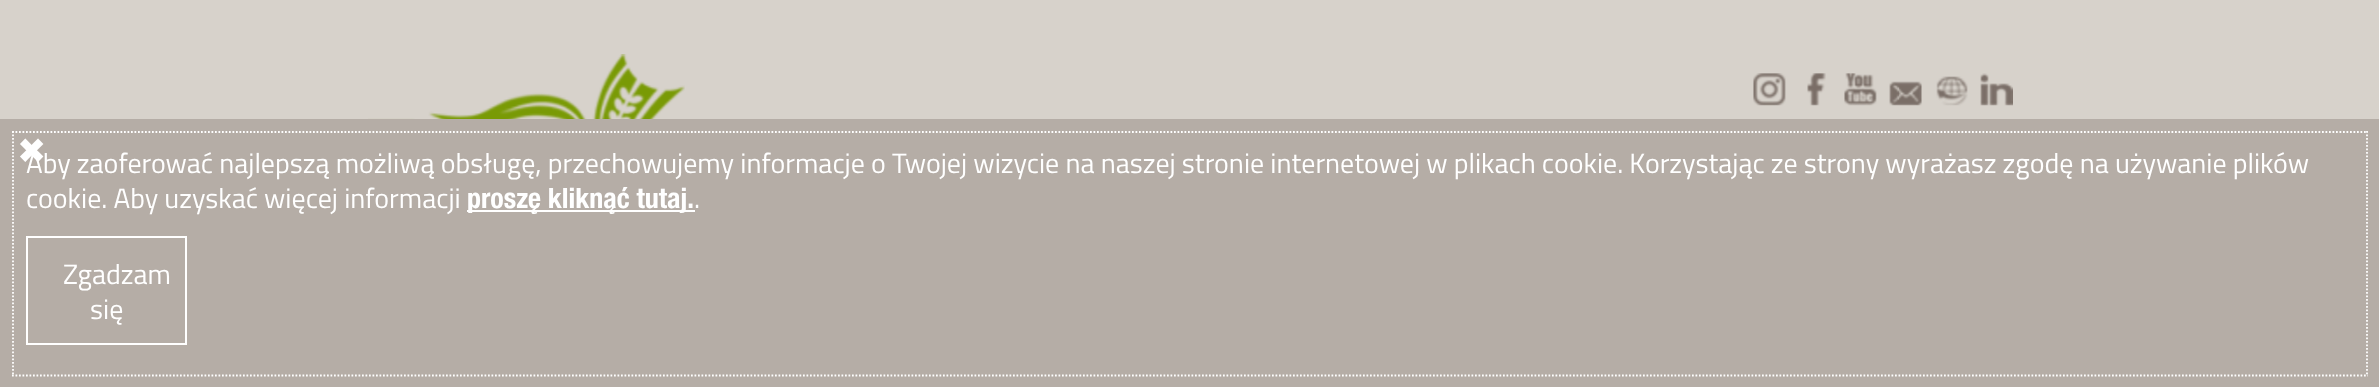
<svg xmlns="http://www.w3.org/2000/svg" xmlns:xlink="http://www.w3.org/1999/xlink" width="2379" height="387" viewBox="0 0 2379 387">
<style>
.cls-1{font:28px Titillium Web;fill:#ffffff}
.cls-2{font:35px DejaVu Sans;fill:#ffffff}
.cls-3{font:28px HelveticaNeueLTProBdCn;fill:#ffffff}
</style>
<rect width="100%" height="100%" fill="#d7d2cb"/>
<image xlink:href="image0.png" x="368" y="54" width="317" height="65"/>
<image xlink:href="image1.png" x="1753" y="73" width="33" height="33"/>
<image xlink:href="image2.png" x="1807" y="73" width="19" height="33"/>
<image xlink:href="image3.png" x="1844" y="73" width="33" height="33"/>
<image xlink:href="image4.png" x="1889" y="81" width="33" height="25"/>
<image xlink:href="image5.png" x="1936" y="76" width="32" height="30"/>
<image xlink:href="image6.png" x="1980" y="73" width="33" height="33"/>
<rect fill="#b5ada6" x="0" y="119" width="2379" height="268"/>
<path fill="none" stroke="#ffffff" stroke-width="1.8" stroke-dasharray="1.75 1.75" d="M12 132H2368"/>
<path fill="none" stroke="#ffffff" stroke-width="1.8" stroke-dasharray="1.75 1.75" d="M2367 131V376"/>
<path fill="none" stroke="#ffffff" stroke-width="1.8" stroke-dasharray="1.75 1.75" d="M12 375.5H2368"/>
<path fill="none" stroke="#ffffff" stroke-width="1.8" stroke-dasharray="1.75 1.75" d="M13 131V376"/>
<rect fill="#ffffff" x="467" y="210" width="228" height="2"/>
<rect fill="none" stroke="#ffffff" stroke-width="2" x="27" y="237" width="159" height="107"/>
<text class="cls-1" x="26" y="173">Aby zaoferować najlepszą możliwą obsługę, przechowujemy informacje o Twojej wizycie na naszej stronie internetowej w plikach cookie. Korzystając ze strony wyrażasz zgodę na używanie plików</text>
<text class="cls-2" x="17" y="163">✖</text>
<text class="cls-1" x="26" y="208">cookie. Aby uzyskać więcej informacji</text>
<text class="cls-3" x="467" y="208">proszę kliknąć tutaj.</text>
<text class="cls-1" x="694" y="208">.</text>
<text class="cls-1" x="63" y="284">Zgadzam</text>
<text class="cls-1" x="90" y="319">się</text>
</svg>
